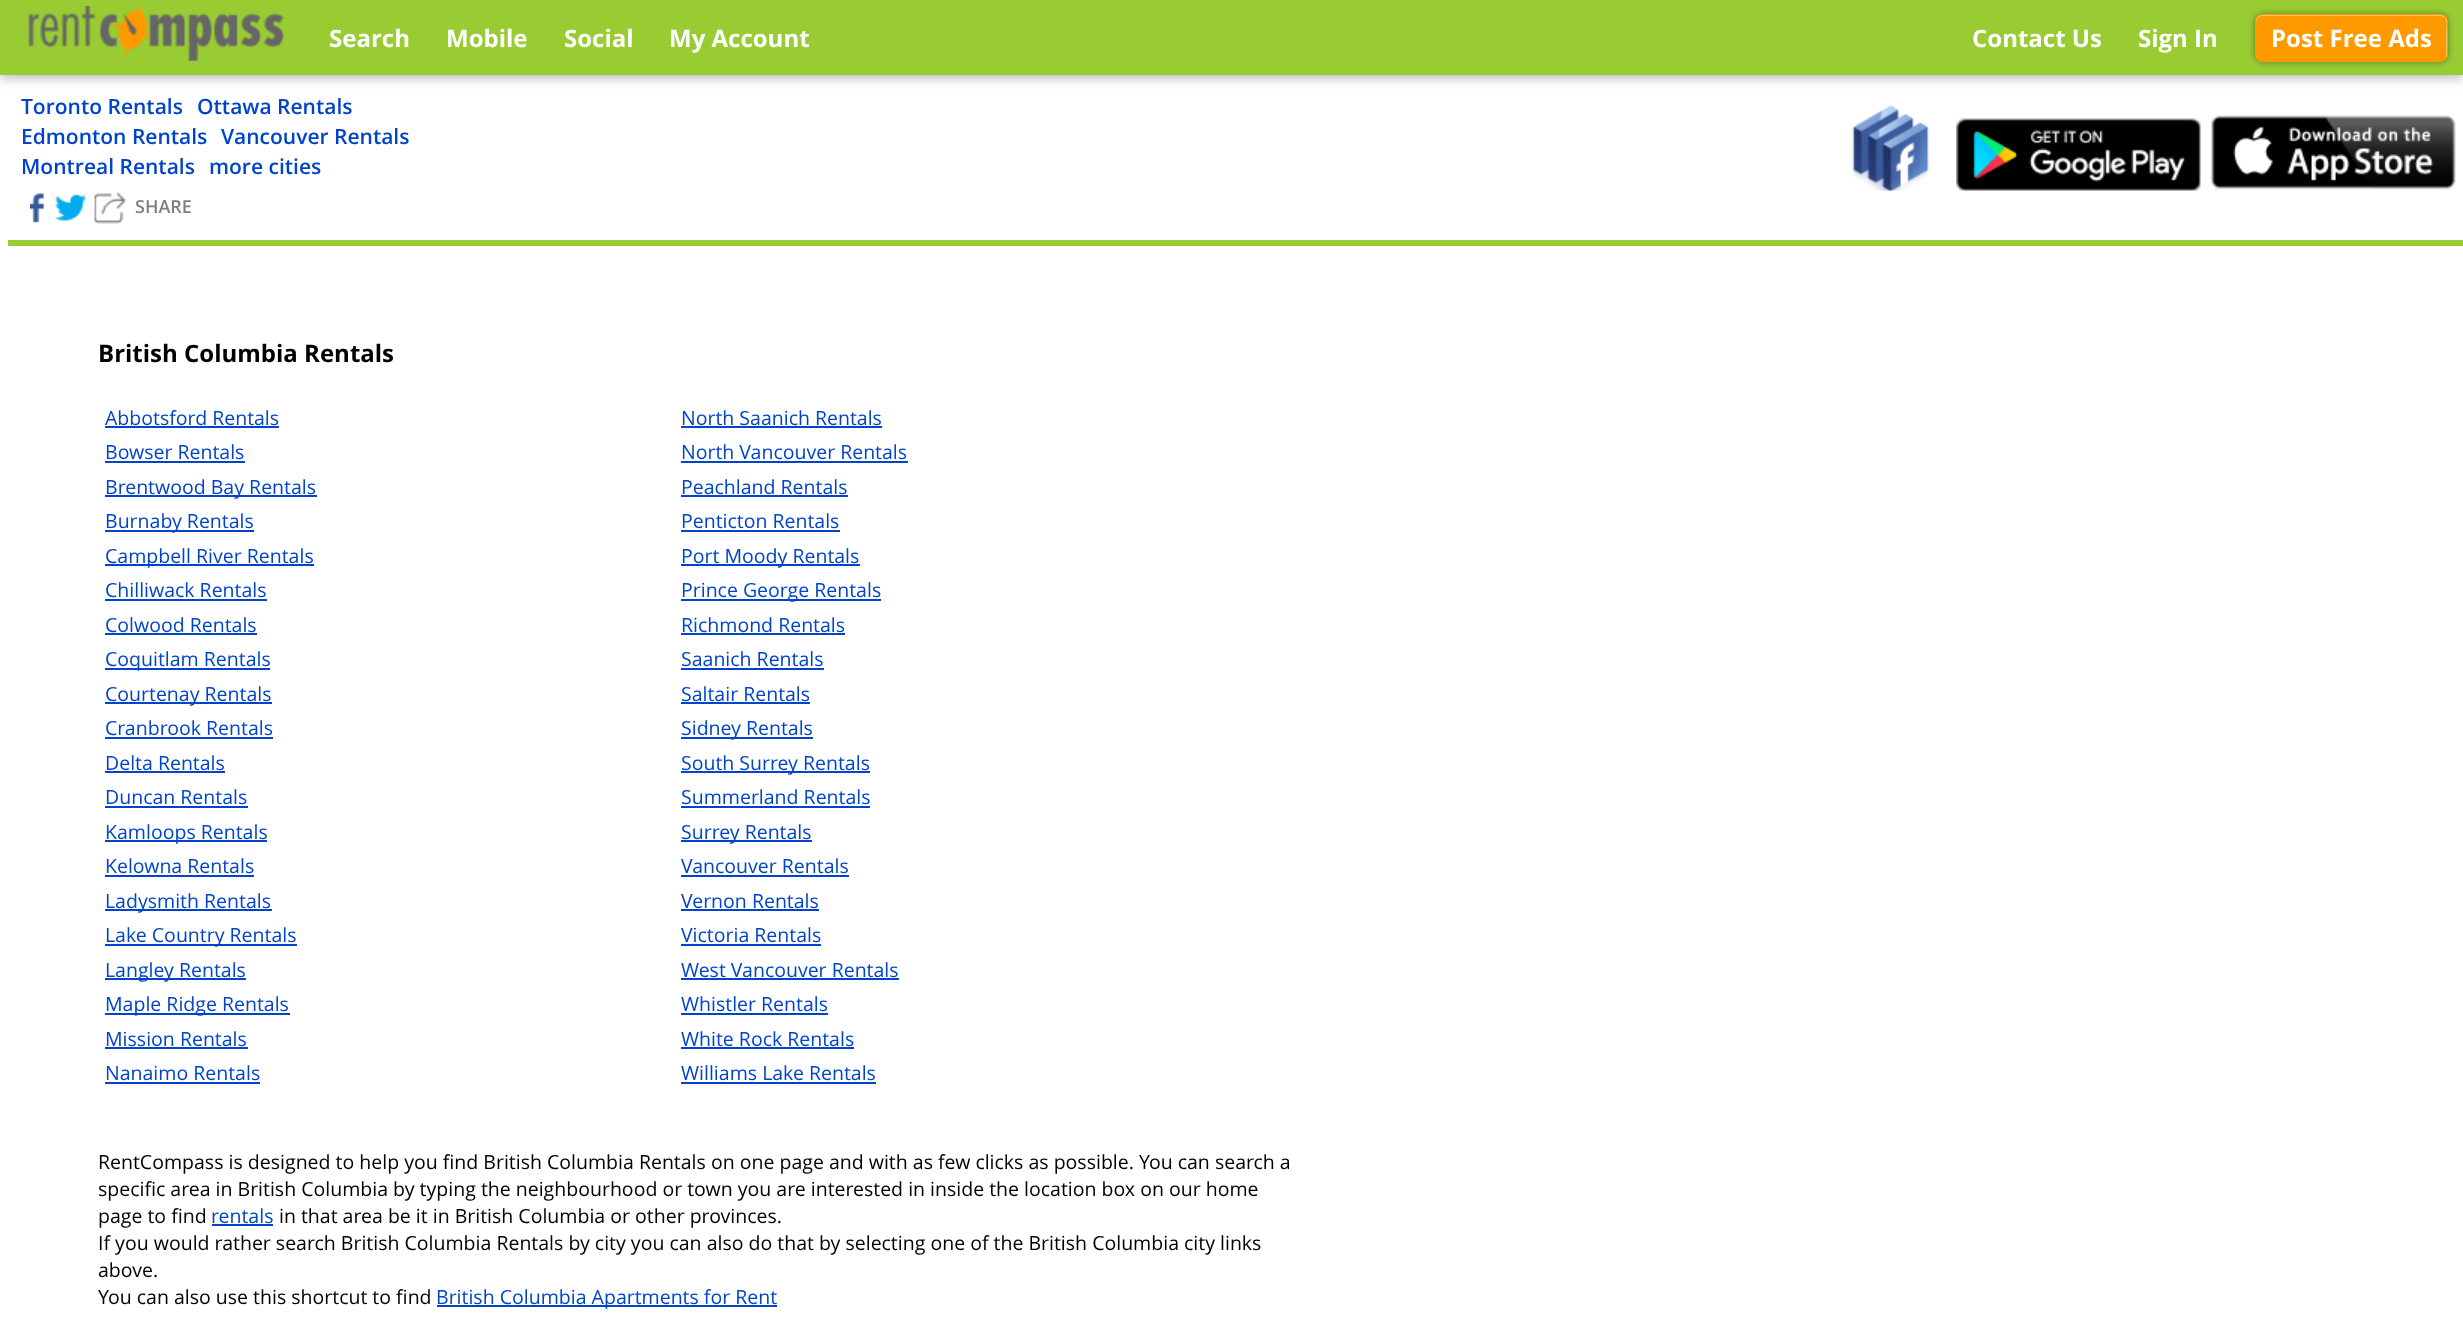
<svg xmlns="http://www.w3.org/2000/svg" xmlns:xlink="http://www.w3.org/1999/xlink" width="2463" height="1327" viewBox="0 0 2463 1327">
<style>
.cls-1{font:bold 24px Open Sans;fill:#ffffff}
.cls-2{font:600 21px Open Sans;fill:#0044cc}
.cls-3{font:600 18px Open Sans;fill:#808080}
.cls-4{font:bold 24px Open Sans;fill:#000000}
.cls-5{font:19.5px Open Sans;fill:#0044cc}
.cls-6{font:19.5px Open Sans;fill:#000000}
</style>
<rect width="100%" height="100%" fill="#ffffff"/>
<rect fill="#000000" fill-opacity="0.12" filter="blur(7.5px)" x="0" y="3" width="2463" height="75"/>
<rect fill="#000000" fill-opacity="0.16" filter="blur(4px)" x="0" y="3" width="2463" height="75"/>
<rect fill="#99cc33" x="0" y="0" width="2463" height="75"/>
<image xlink:href="image0.png" x="28" y="6" width="256" height="55"/>
<rect fill="#000000" fill-opacity="0.4" filter="blur(3px)" x="2255" y="14" width="193" height="48" rx="8"/>
<rect fill="#fe9900" x="2255" y="14" width="193" height="48" rx="8"/>
<path fill="#fec266" d="M2262 16H2440C2449 16 2446 28 2446 33V58C2447 57 2447 55 2447 54V21C2447 18 2444 15 2441 15H2262C2259 15 2256 18 2256 21V22C2256 19 2259 16 2262 16Z"/>
<image xlink:href="image1.png" x="1852" y="105" width="78" height="86"/>
<image xlink:href="image2.png" x="1956" y="118" width="245" height="73"/>
<image xlink:href="image3.png" x="2211" y="115" width="245" height="76"/>
<image xlink:href="image4.png" x="30" y="191" width="97" height="33"/>
<rect fill="#99cc33" x="8" y="240" width="2455" height="6"/>
<rect fill="#0044cc" x="105" y="426" width="174" height="2"/>
<rect fill="#0044cc" x="681" y="426" width="201" height="2"/>
<rect fill="#0044cc" x="105" y="461" width="140" height="2"/>
<rect fill="#0044cc" x="681" y="461" width="227" height="2"/>
<rect fill="#0044cc" x="105" y="495" width="212" height="2"/>
<rect fill="#0044cc" x="681" y="495" width="167" height="2"/>
<rect fill="#0044cc" x="105" y="530" width="149" height="2"/>
<rect fill="#0044cc" x="681" y="530" width="159" height="2"/>
<rect fill="#0044cc" x="105" y="564" width="209" height="2"/>
<rect fill="#0044cc" x="681" y="564" width="179" height="2"/>
<rect fill="#0044cc" x="105" y="599" width="162" height="2"/>
<rect fill="#0044cc" x="681" y="599" width="200" height="2"/>
<rect fill="#0044cc" x="105" y="633" width="152" height="2"/>
<rect fill="#0044cc" x="681" y="633" width="164" height="2"/>
<rect fill="#0044cc" x="105" y="668" width="165" height="2"/>
<rect fill="#0044cc" x="681" y="668" width="143" height="2"/>
<rect fill="#0044cc" x="105" y="702" width="167" height="2"/>
<rect fill="#0044cc" x="681" y="702" width="129" height="2"/>
<rect fill="#0044cc" x="105" y="737" width="168" height="2"/>
<rect fill="#0044cc" x="681" y="737" width="132" height="2"/>
<rect fill="#0044cc" x="105" y="771" width="120" height="2"/>
<rect fill="#0044cc" x="681" y="771" width="189" height="2"/>
<rect fill="#0044cc" x="105" y="806" width="143" height="2"/>
<rect fill="#0044cc" x="681" y="806" width="189" height="2"/>
<rect fill="#0044cc" x="105" y="840" width="162" height="2"/>
<rect fill="#0044cc" x="681" y="840" width="131" height="2"/>
<rect fill="#0044cc" x="105" y="875" width="149" height="2"/>
<rect fill="#0044cc" x="681" y="875" width="168" height="2"/>
<rect fill="#0044cc" x="105" y="909" width="167" height="2"/>
<rect fill="#0044cc" x="681" y="909" width="138" height="2"/>
<rect fill="#0044cc" x="105" y="944" width="192" height="2"/>
<rect fill="#0044cc" x="681" y="944" width="140" height="2"/>
<rect fill="#0044cc" x="105" y="978" width="141" height="2"/>
<rect fill="#0044cc" x="681" y="978" width="218" height="2"/>
<rect fill="#0044cc" x="105" y="1013" width="185" height="2"/>
<rect fill="#0044cc" x="681" y="1013" width="147" height="2"/>
<rect fill="#0044cc" x="105" y="1047" width="143" height="2"/>
<rect fill="#0044cc" x="681" y="1047" width="173" height="2"/>
<rect fill="#0044cc" x="105" y="1082" width="155" height="2"/>
<rect fill="#0044cc" x="681" y="1082" width="195" height="2"/>
<rect fill="#0044cc" x="212" y="1224" width="61" height="2"/>
<rect fill="#0044cc" x="437" y="1305" width="340" height="2"/>
<text class="cls-1" x="329" y="47">Search</text>
<text class="cls-1" x="446" y="47">Mobile</text>
<text class="cls-1" x="564" y="47">Social</text>
<text class="cls-1" x="669" y="47">My Account</text>
<text class="cls-1" x="1972" y="47">Contact Us</text>
<text class="cls-1" x="2138" y="47">Sign In</text>
<text class="cls-1" x="2271" y="47">Post Free Ads</text>
<text class="cls-2" x="21" y="114">Toronto Rentals</text>
<text class="cls-2" x="197" y="114">Ottawa Rentals</text>
<text class="cls-2" x="21" y="144">Edmonton Rentals</text>
<text class="cls-2" x="221" y="144">Vancouver Rentals</text>
<text class="cls-2" x="21" y="174">Montreal Rentals</text>
<text class="cls-2" x="209" y="174">more cities</text>
<text class="cls-3" x="135" y="213">SHARE</text>
<text class="cls-4" x="98" y="362">British Columbia Rentals</text>
<text class="cls-5" x="105" y="425">Abbotsford Rentals</text>
<text class="cls-5" x="681" y="425">North Saanich Rentals</text>
<text class="cls-5" x="105" y="459">Bowser Rentals</text>
<text class="cls-5" x="681" y="459">North Vancouver Rentals</text>
<text class="cls-5" x="105" y="494">Brentwood Bay Rentals</text>
<text class="cls-5" x="681" y="494">Peachland Rentals</text>
<text class="cls-5" x="105" y="528">Burnaby Rentals</text>
<text class="cls-5" x="681" y="528">Penticton Rentals</text>
<text class="cls-5" x="105" y="563">Campbell River Rentals</text>
<text class="cls-5" x="681" y="563">Port Moody Rentals</text>
<text class="cls-5" x="105" y="597">Chilliwack Rentals</text>
<text class="cls-5" x="681" y="597">Prince George Rentals</text>
<text class="cls-5" x="105" y="632">Colwood Rentals</text>
<text class="cls-5" x="681" y="632">Richmond Rentals</text>
<text class="cls-5" x="105" y="666">Coquitlam Rentals</text>
<text class="cls-5" x="681" y="666">Saanich Rentals</text>
<text class="cls-5" x="105" y="701">Courtenay Rentals</text>
<text class="cls-5" x="681" y="701">Saltair Rentals</text>
<text class="cls-5" x="105" y="735">Cranbrook Rentals</text>
<text class="cls-5" x="681" y="735">Sidney Rentals</text>
<text class="cls-5" x="105" y="770">Delta Rentals</text>
<text class="cls-5" x="681" y="770">South Surrey Rentals</text>
<text class="cls-5" x="105" y="804">Duncan Rentals</text>
<text class="cls-5" x="681" y="804">Summerland Rentals</text>
<text class="cls-5" x="105" y="839">Kamloops Rentals</text>
<text class="cls-5" x="681" y="839">Surrey Rentals</text>
<text class="cls-5" x="105" y="873">Kelowna Rentals</text>
<text class="cls-5" x="681" y="873">Vancouver Rentals</text>
<text class="cls-5" x="105" y="908">Ladysmith Rentals</text>
<text class="cls-5" x="681" y="908">Vernon Rentals</text>
<text class="cls-5" x="105" y="942">Lake Country Rentals</text>
<text class="cls-5" x="681" y="942">Victoria Rentals</text>
<text class="cls-5" x="105" y="977">Langley Rentals</text>
<text class="cls-5" x="681" y="977">West Vancouver Rentals</text>
<text class="cls-5" x="105" y="1011">Maple Ridge Rentals</text>
<text class="cls-5" x="681" y="1011">Whistler Rentals</text>
<text class="cls-5" x="105" y="1046">Mission Rentals</text>
<text class="cls-5" x="681" y="1046">White Rock Rentals</text>
<text class="cls-5" x="105" y="1080">Nanaimo Rentals</text>
<text class="cls-5" x="681" y="1080">Williams Lake Rentals</text>
<text class="cls-6"><tspan x="98" y="1169">RentCompass is designed to help you find British Columbia Rentals on one page and with as few clicks as possible. You can search a</tspan><tspan x="98" y="1196">specific area in British Columbia by typing the neighbourhood or town you are interested in inside the location box on our home</tspan><tspan x="98" y="1223">page to find</tspan></text>
<text class="cls-5" x="211" y="1223">rentals</text>
<text class="cls-6" x="279" y="1223">in that area be it in British Columbia or other provinces.</text>
<text class="cls-6"><tspan x="98" y="1250">If you would rather search British Columbia Rentals by city you can also do that by selecting one of the British Columbia city links</tspan><tspan x="98" y="1277">above.</tspan><tspan x="98" y="1304">You can also use this shortcut to find</tspan></text>
<text class="cls-5" x="436" y="1304">British Columbia Apartments for Rent</text>
</svg>
